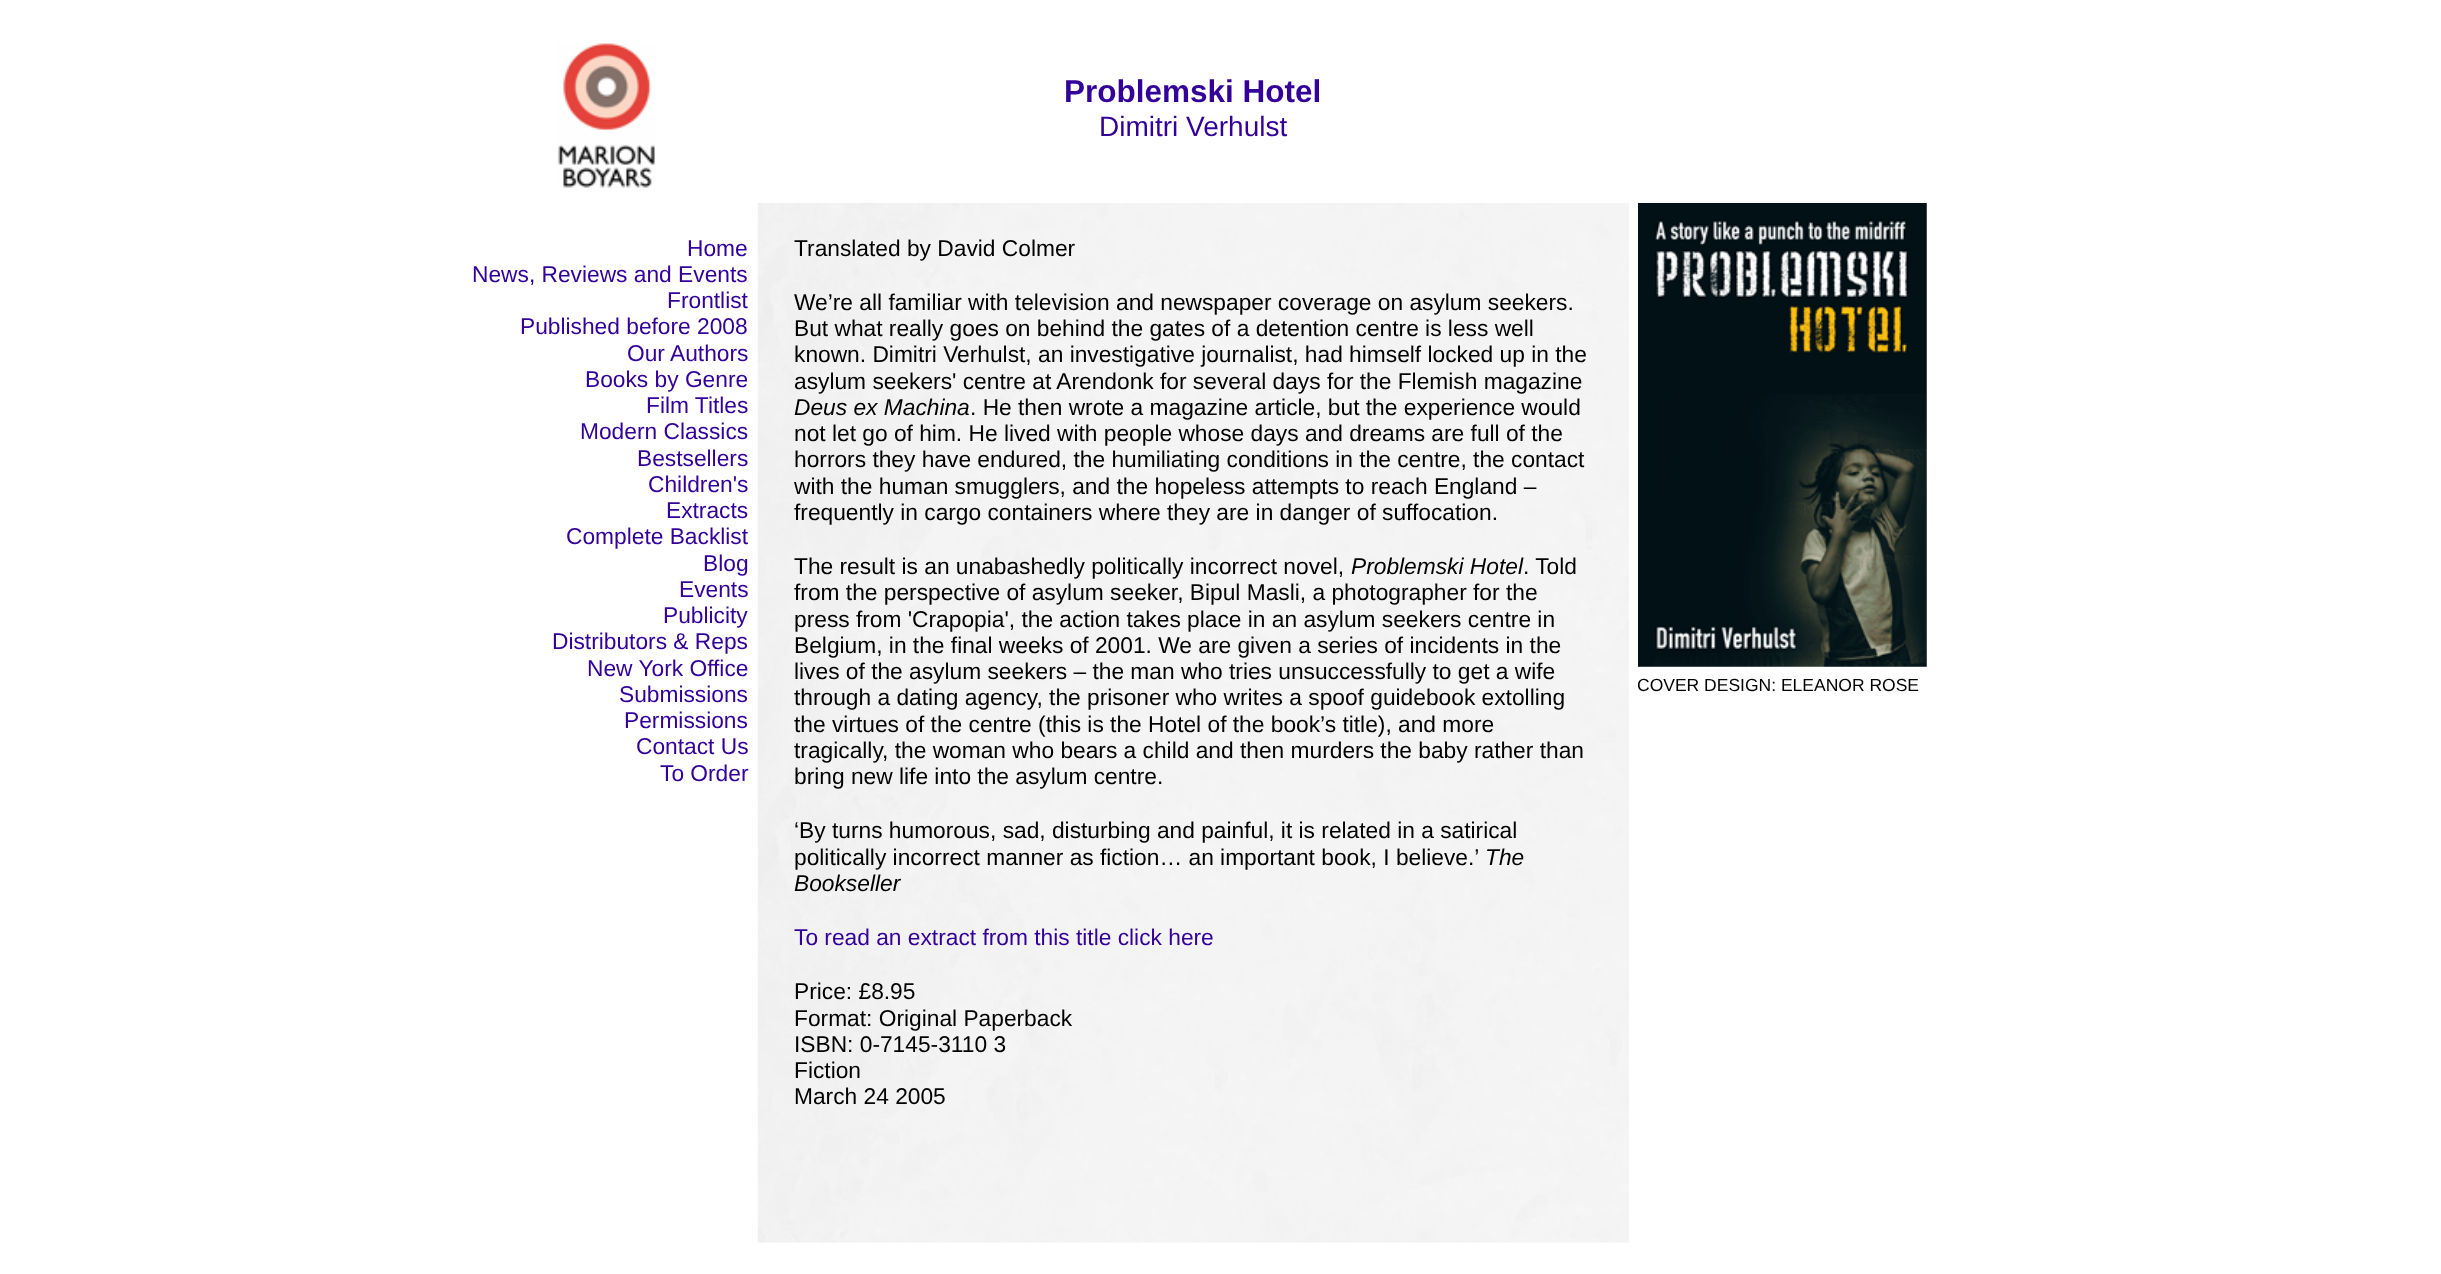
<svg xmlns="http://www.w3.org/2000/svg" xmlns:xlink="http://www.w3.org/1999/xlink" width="2441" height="1274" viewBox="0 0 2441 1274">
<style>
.cls-1{font:bold 31.5px Liberation Sans;fill:#330099}
.cls-2{font:28px Liberation Sans;fill:#330099}
.cls-3{font:22.75px Liberation Sans;fill:#330099}
.cls-4{font:22.75px Liberation Sans;fill:#000000}
.cls-5{font:italic 22.75px Liberation Sans;fill:#000000}
.cls-6{font:17.5px Liberation Sans;fill:#000000}
</style>
<rect width="100%" height="100%" fill="#ffffff"/>
<image xlink:href="image0.png" x="557" y="43" width="98" height="145"/>
<image xlink:href="image1.png" x="757" y="203" width="872" height="1040"/>
<image xlink:href="image2.png" x="1638" y="203" width="289" height="464"/>
<text class="cls-1" x="1064" y="102">Problemski Hotel</text>
<text class="cls-2" x="1099" y="136">Dimitri Verhulst</text>
<text class="cls-3" x="687" y="256">Home</text>
<text class="cls-3" x="472" y="282">News, Reviews and Events</text>
<text class="cls-3" x="667" y="308">Frontlist</text>
<text class="cls-3" x="520" y="334">Published before 2008</text>
<text class="cls-3" x="627" y="361">Our Authors</text>
<text class="cls-3" x="585" y="387">Books by Genre</text>
<text class="cls-3" x="646" y="413">Film Titles</text>
<text class="cls-3" x="580" y="439">Modern Classics</text>
<text class="cls-3" x="637" y="466">Bestsellers</text>
<text class="cls-3" x="648" y="492">Children's</text>
<text class="cls-3" x="666" y="518">Extracts</text>
<text class="cls-3" x="566" y="544">Complete Backlist</text>
<text class="cls-3" x="703" y="571">Blog</text>
<text class="cls-3" x="679" y="597">Events</text>
<text class="cls-3" x="663" y="623">Publicity</text>
<text class="cls-3" x="552" y="649">Distributors &amp; Reps</text>
<text class="cls-3" x="587" y="676">New York Office</text>
<text class="cls-3" x="619" y="702">Submissions</text>
<text class="cls-3" x="624" y="728">Permissions</text>
<text class="cls-3" x="636" y="754">Contact Us</text>
<text class="cls-3" x="660" y="781">To Order</text>
<text class="cls-4" x="794" y="256">Translated by David Colmer</text>
<text class="cls-4"><tspan x="794" y="310">We’re all familiar with television and newspaper coverage on asylum seekers.</tspan><tspan x="794" y="336">But what really goes on behind the gates of a detention centre is less well</tspan><tspan x="794" y="362">known. Dimitri Verhulst, an investigative journalist, had himself locked up in the</tspan><tspan x="794" y="389">asylum seekers' centre at Arendonk for several days for the Flemish magazine</tspan></text>
<text class="cls-5" x="794" y="415">Deus ex Machina</text>
<text class="cls-4" x="970" y="415">. He then wrote a magazine article, but the experience would</text>
<text class="cls-4"><tspan x="794" y="441">not let go of him. He lived with people whose days and dreams are full of the</tspan><tspan x="794" y="467">horrors they have endured, the humiliating conditions in the centre, the contact</tspan><tspan x="794" y="494">with the human smugglers, and the hopeless attempts to reach England –</tspan><tspan x="794" y="520">frequently in cargo containers where they are in danger of suffocation.</tspan></text>
<text class="cls-4" x="794" y="574">The result is an unabashedly politically incorrect novel,</text>
<text class="cls-5" x="1351" y="574">Problemski Hotel</text>
<text class="cls-4" x="1523" y="574">. Told</text>
<text class="cls-4"><tspan x="794" y="600">from the perspective of asylum seeker, Bipul Masli, a photographer for the</tspan><tspan x="794" y="627">press from 'Crapopia', the action takes place in an asylum seekers centre in</tspan><tspan x="794" y="653">Belgium, in the final weeks of 2001. We are given a series of incidents in the</tspan><tspan x="794" y="679">lives of the asylum seekers – the man who tries unsuccessfully to get a wife</tspan><tspan x="794" y="705">through a dating agency, the prisoner who writes a spoof guidebook extolling</tspan><tspan x="794" y="732">the virtues of the centre (this is the Hotel of the book’s title), and more</tspan><tspan x="794" y="758">tragically, the woman who bears a child and then murders the baby rather than</tspan><tspan x="794" y="784">bring new life into the asylum centre.</tspan></text>
<text class="cls-4"><tspan x="794" y="838">‘By turns humorous, sad, disturbing and painful, it is related in a satirical</tspan><tspan x="794" y="865">politically incorrect manner as fiction… an important book, I believe.’</tspan></text>
<text class="cls-5" x="1485" y="865">The</text>
<text class="cls-5" x="794" y="891">Bookseller</text>
<text class="cls-3" x="794" y="945">To read an extract from this title click here</text>
<text class="cls-4"><tspan x="794" y="999">Price: £8.95</tspan><tspan x="794" y="1026">Format: Original Paperback</tspan><tspan x="794" y="1052">ISBN: 0-7145-3110 3</tspan><tspan x="794" y="1078">Fiction</tspan><tspan x="794" y="1104">March 24 2005</tspan></text>
<text class="cls-6" x="1637" y="691">COVER DESIGN: ELEANOR ROSE</text>
</svg>
